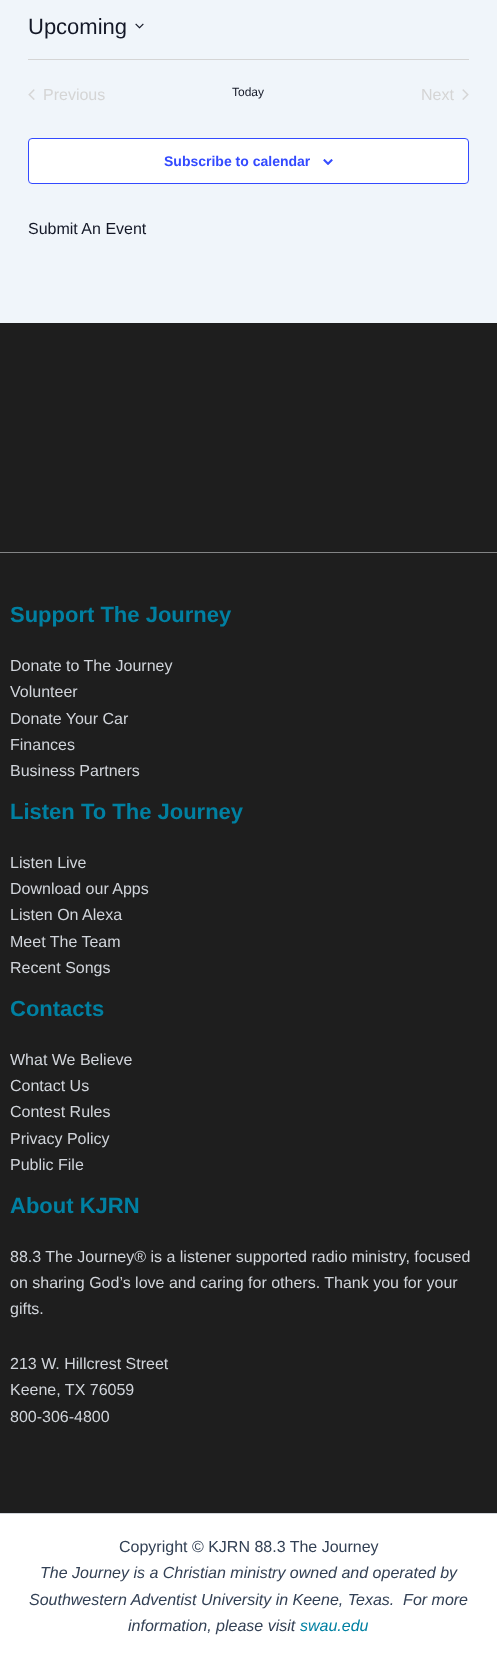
<svg xmlns="http://www.w3.org/2000/svg" xmlns:xlink="http://www.w3.org/1999/xlink" width="497" height="1670" viewBox="0 0 497 1670">
<style>
.cls-1{font:22px Liberation Sans;fill:#141827}
.cls-2{font:16px Liberation Sans;fill:#d5d5d5}
.cls-3{font:12px Liberation Sans;fill:#141827}
.cls-4{font:bold 14px Liberation Sans;fill:#334aff}
.cls-5{font:16px Liberation Sans;fill:#141827}
.cls-6{font:bold 22px Liberation Sans;fill:#0080a2}
.cls-7{font:16px Liberation Sans;fill:#d1d5db}
.cls-8{font:16px Liberation Sans;fill:#334155}
.cls-9{font:italic 16px Liberation Sans;fill:#334155}
.cls-10{font:italic 16px Liberation Sans;fill:#0080a2}
</style>
<rect width="100%" height="100%" fill="#f0f5fa"/>
<image xlink:href="image0.png" x="135" y="23" width="9" height="6"/>
<rect fill="#d5d5d5" x="28" y="59" width="441" height="1"/>
<image xlink:href="image1.png" x="28" y="89" width="7" height="11"/>
<image xlink:href="image2.png" x="462" y="89" width="7" height="11"/>
<rect fill="#ffffff" stroke="#334aff" x="28.5" y="138.5" width="440" height="45" rx="3.5"/>
<image xlink:href="image3.png" x="323" y="159" width="10" height="6"/>
<rect fill="#1e1e1e" x="0" y="323" width="497" height="229"/>
<rect fill="#1e1e1e" x="0" y="553" width="497" height="960"/>
<rect fill="#838485" x="0" y="552" width="497" height="1"/>
<rect fill="#ffffff" x="0" y="1514" width="497" height="156"/>
<rect fill="#d1d5db" x="0" y="1513" width="497" height="1"/>
<text class="cls-1" x="28" y="34">Upcoming</text>
<text class="cls-2" x="43" y="100">Previous</text>
<text class="cls-3" x="232" y="96">Today</text>
<text class="cls-2" x="421" y="100">Next</text>
<text class="cls-4" x="164" y="166">Subscribe to calendar</text>
<text class="cls-5" x="28" y="234">Submit An Event</text>
<text class="cls-6" x="10" y="622">Support The Journey</text>
<text class="cls-7"><tspan x="10" y="671">Donate to The Journey</tspan><tspan x="10" y="697">Volunteer</tspan><tspan x="10" y="724">Donate Your Car</tspan><tspan x="10" y="750">Finances</tspan><tspan x="10" y="776">Business Partners</tspan></text>
<text class="cls-6" x="10" y="819">Listen To The Journey</text>
<text class="cls-7"><tspan x="10" y="868">Listen Live</tspan><tspan x="10" y="894">Download our Apps</tspan><tspan x="10" y="920">Listen On Alexa</tspan><tspan x="10" y="947">Meet The Team</tspan><tspan x="10" y="973">Recent Songs</tspan></text>
<text class="cls-6" x="10" y="1016">Contacts</text>
<text class="cls-7"><tspan x="10" y="1065">What We Believe</tspan><tspan x="10" y="1091">Contact Us</tspan><tspan x="10" y="1117">Contest Rules</tspan><tspan x="10" y="1144">Privacy Policy</tspan><tspan x="10" y="1170">Public File</tspan></text>
<text class="cls-6" x="10" y="1213">About KJRN</text>
<text class="cls-7"><tspan x="10" y="1262">88.3 The Journey® is a listener supported radio ministry, focused</tspan><tspan x="10" y="1288">on sharing God’s love and caring for others. Thank you for your</tspan><tspan x="10" y="1314">gifts.</tspan></text>
<text class="cls-7"><tspan x="10" y="1369">213 W. Hillcrest Street</tspan><tspan x="10" y="1395">Keene, TX 76059</tspan><tspan x="10" y="1422">800-306-4800</tspan></text>
<text class="cls-8" x="119" y="1552">Copyright © KJRN 88.3 The Journey</text>
<text class="cls-9" x="40" y="1578">The Journey is a Christian ministry owned and operated by</text>
<text class="cls-9" xml:space="preserve" x="29" y="1605">Southwestern Adventist University in Keene, Texas.  For more</text>
<text class="cls-9" x="128" y="1631">information, please visit</text>
<text class="cls-10" x="300" y="1631">swau.edu</text>
</svg>
